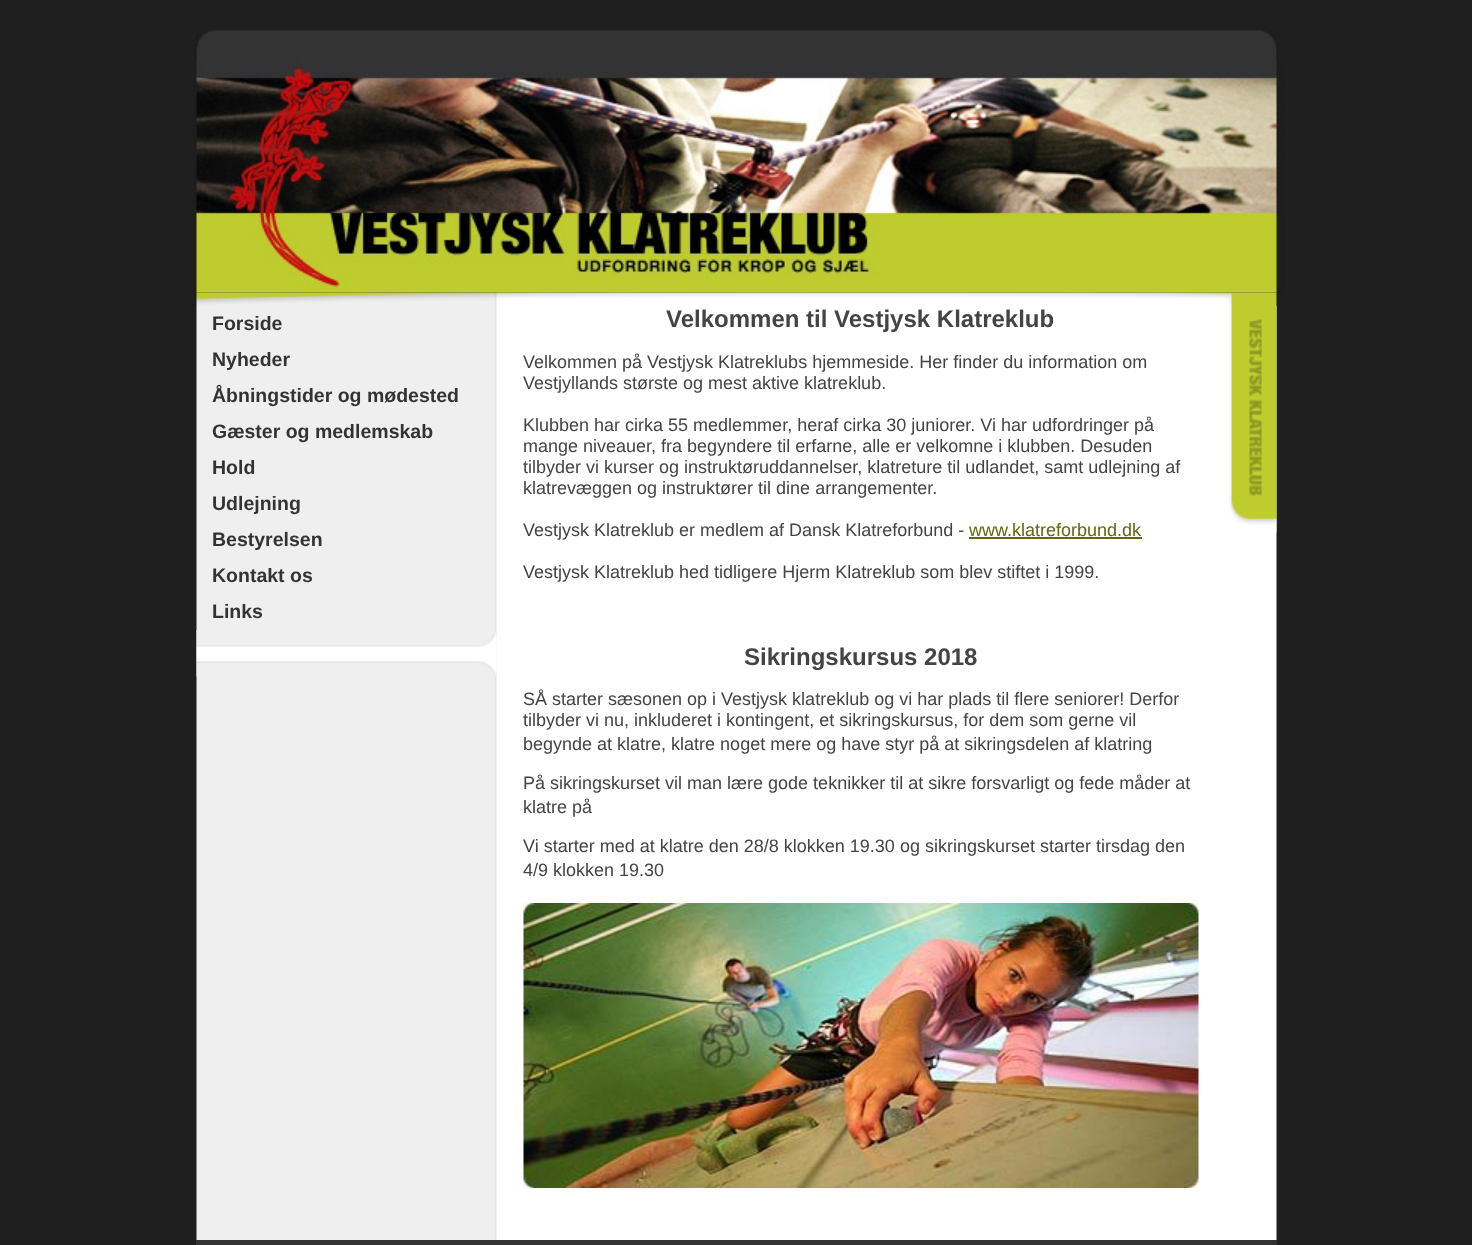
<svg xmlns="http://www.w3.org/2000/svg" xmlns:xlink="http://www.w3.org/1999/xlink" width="1472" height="1245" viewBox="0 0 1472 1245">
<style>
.cls-1{font:bold 19.5px Liberation Sans;fill:#333333}
.cls-2{font:bold 24px Liberation Sans;fill:#444444}
.cls-3{font:18px Liberation Sans;fill:#444444}
.cls-4{font:18px Liberation Sans;fill:#60680d}
</style>
<rect width="100%" height="100%" fill="#1f1f1f"/>
<image xlink:href="image0.png" x="195" y="30" width="1083" height="30"/>
<image xlink:href="image2.png" x="195" y="292" width="1083" height="14"/>
<image xlink:href="image1.png" x="193" y="60" width="1092" height="233"/>
<image xlink:href="image3.png" x="196" y="306" width="1081" height="934"/>
<image xlink:href="image4.png" x="196" y="630" width="301" height="47"/>
<rect fill="#60680d" x="969" y="537" width="173" height="2"/>
<image xlink:href="image5.png" x="523" y="903" width="676" height="285"/>
<image xlink:href="image6.png" x="1229" y="306" width="48" height="227"/>
<rect fill="#333333" x="196" y="1240" width="1081" height="5"/>
<text class="cls-1"><tspan x="212" y="330">Forside</tspan><tspan x="212" y="366">Nyheder</tspan><tspan x="212" y="402">Åbningstider og mødested</tspan><tspan x="212" y="438">Gæster og medlemskab</tspan><tspan x="212" y="474">Hold</tspan><tspan x="212" y="510">Udlejning</tspan><tspan x="212" y="546">Bestyrelsen</tspan><tspan x="212" y="582">Kontakt os</tspan><tspan x="212" y="618">Links</tspan></text>
<text class="cls-2" x="666" y="327">Velkommen til Vestjysk Klatreklub</text>
<text class="cls-3"><tspan x="523" y="368">Velkommen på Vestjysk Klatreklubs hjemmeside. Her finder du information om</tspan><tspan x="523" y="389">Vestjyllands største og mest aktive klatreklub.</tspan></text>
<text class="cls-3"><tspan x="523" y="431">Klubben har cirka 55 medlemmer, heraf cirka 30 juniorer. Vi har udfordringer på</tspan><tspan x="523" y="452">mange niveauer, fra begyndere til erfarne, alle er velkomne i klubben. Desuden</tspan><tspan x="523" y="473">tilbyder vi kurser og instruktøruddannelser, klatreture til udlandet, samt udlejning af</tspan><tspan x="523" y="494">klatrevæggen og instruktører til dine arrangementer.</tspan></text>
<text class="cls-3" x="523" y="536">Vestjysk Klatreklub er medlem af Dansk Klatreforbund -</text>
<text class="cls-4" x="969" y="536">www.klatreforbund.dk</text>
<text class="cls-3" x="523" y="578">Vestjysk Klatreklub hed tidligere Hjerm Klatreklub som blev stiftet i 1999.</text>
<text class="cls-2" x="744" y="665">Sikringskursus 2018</text>
<text class="cls-3"><tspan x="523" y="705">SÅ starter sæsonen op i Vestjysk klatreklub og vi har plads til flere seniorer! Derfor</tspan><tspan x="523" y="726">tilbyder vi nu, inkluderet i kontingent, et sikringskursus, for dem som gerne vil</tspan><tspan x="523" y="750">begynde at klatre, klatre noget mere og have styr på at sikringsdelen af klatring</tspan></text>
<text class="cls-3"><tspan x="523" y="789">På sikringskurset vil man lære gode teknikker til at sikre forsvarligt og fede måder at</tspan><tspan x="523" y="813">klatre på</tspan></text>
<text class="cls-3"><tspan x="523" y="852">Vi starter med at klatre den 28/8 klokken 19.30 og sikringskurset starter tirsdag den</tspan><tspan x="523" y="876">4/9 klokken 19.30</tspan></text>
</svg>
